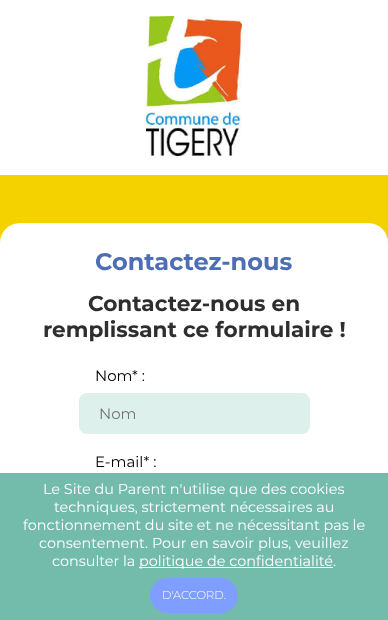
<svg xmlns="http://www.w3.org/2000/svg" xmlns:xlink="http://www.w3.org/1999/xlink" width="388" height="620" viewBox="0 0 388 620">
<style>
.cls-1{font:bold 24px Montserrat;fill:#4d6eb5}
.cls-2{font:bold 21.6px Montserrat;fill:#2e2e2e}
.cls-3{font:15px Montserrat;fill:#000000}
.cls-4{font:15px Montserrat;fill:#757575}
.cls-5{font:14.4px Montserrat;fill:#ffffff}
.cls-6{font:300 11.5px Montserrat;fill:#ffffff}
</style>
<rect width="100%" height="100%" fill="#f4d200"/>
<rect fill="#ffffff" x="0" y="0" width="388" height="175"/>
<image xlink:href="image0.png" x="146" y="16" width="96" height="140"/>
<rect fill="#ffffff" x="0" y="223" width="388" height="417" rx="20"/>
<rect fill="#ddf0ec" x="79" y="393" width="231" height="41" rx="8"/>
<rect fill="#73bcac" x="0" y="473" width="388" height="147"/>
<rect fill="#ffffff" x="139" y="567" width="194" height="1"/>
<rect fill="#809eff" x="150" y="578" width="88" height="35" rx="17.5"/>
<text class="cls-1" x="95" y="270">Contactez-nous</text>
<text class="cls-2" x="88" y="311">Contactez-nous en</text>
<text class="cls-2" x="43" y="337">remplissant ce formulaire !</text>
<text class="cls-3" x="95" y="381">Nom</text>
<text class="cls-3" x="132" y="381">* :</text>
<text class="cls-4" x="99" y="419">Nom</text>
<text class="cls-3" x="95" y="467">E-mail* :</text>
<text class="cls-5" x="43" y="494">Le Site du Parent n'utilise que des cookies</text>
<text class="cls-5" x="54" y="512">techniques, strictement nécessaires au</text>
<text class="cls-5" x="23" y="530">fonctionnement du site et ne nécessitant pas le</text>
<text class="cls-5" x="39" y="548">consentement. Pour en savoir plus, veuillez</text>
<text class="cls-5" x="52" y="566">consulter la</text>
<text class="cls-5" x="139" y="566">politique de confidentialité.</text>
<text class="cls-6" x="162" y="599">D'ACCORD.</text>
</svg>
